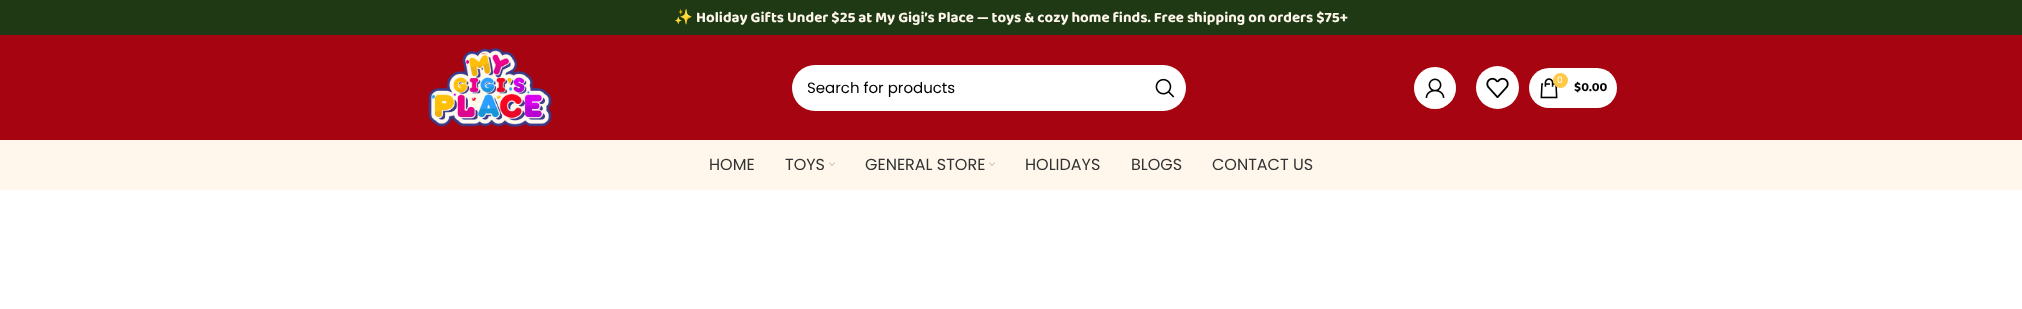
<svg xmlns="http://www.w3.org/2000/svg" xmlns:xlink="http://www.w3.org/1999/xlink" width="2022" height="309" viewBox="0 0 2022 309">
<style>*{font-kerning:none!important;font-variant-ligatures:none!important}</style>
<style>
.cls-1{font:bold 15px Noto Color Emoji;fill:#fff7ec}
.cls-2{font:bold 15px 'Baloo 2';fill:#fff7ec}
.cls-3{font:15px Poppins;fill:#000000}
.cls-4{font:9px Poppins;fill:#ffffff}
.cls-5{font:bold 13px 'Baloo 2';fill:#000000}
.cls-6{font:16px Poppins;fill:#333333}
</style>
<rect width="100%" height="100%" fill="#ffffff"/>
<rect fill="#1f3914" x="0" y="0" width="2022" height="35"/>
<rect fill="#a60411" x="0" y="35" width="2022" height="105"/>
<image xlink:href="image0.png" x="428" y="48" width="124" height="79"/>
<rect fill="#ffffff" x="792" y="65" width="394" height="46" rx="23"/>
<image xlink:href="image1.png" x="1155" y="78" width="20" height="20"/>
<circle fill="#ffffff" cx="1435" cy="88" r="21"/>
<circle fill="none" stroke="#ffffff" stroke-opacity="0.25" cx="1435" cy="88" r="20.5"/>
<image xlink:href="image2.png" x="1425" y="78" width="20" height="20"/>
<circle fill="#ffffff" cx="1497.5" cy="87.5" r="21.5"/>
<image xlink:href="image3.png" x="1486" y="77" width="23" height="21"/>
<rect fill="#ffffff" x="1529" y="68" width="88" height="40" rx="20"/>
<image xlink:href="image4.png" x="1540" y="78" width="18" height="21"/>
<circle fill="#ffc94a" cx="1560.5" cy="80.5" r="7.5"/>
<rect fill="#fff7ec" x="0" y="140" width="2022" height="50"/>
<image xlink:href="image5.png" x="829" y="162" width="6" height="4"/>
<image xlink:href="image5.png" x="989" y="162" width="6" height="4"/>
<text class="cls-1" x="674" y="22">✨</text>
<text class="cls-2" x="696" y="22">Holiday Gifts Under $25 at My Gigi’s Place — toys &amp; cozy home finds. Free shipping on orders $75+</text>
<text class="cls-3" x="807" y="93">Search for products</text>
<text class="cls-4" x="1557" y="83">0</text>
<text class="cls-5" x="1574" y="91">$0.00</text>
<text class="cls-6" x="709" y="170">HOME</text>
<text class="cls-6" x="785" y="170">TOYS</text>
<text class="cls-6" x="865" y="170">GENERAL STORE</text>
<text class="cls-6" x="1025" y="170">HOLIDAYS</text>
<text class="cls-6" x="1131" y="170">BLOGS</text>
<text class="cls-6" x="1212" y="170">CONTACT US</text>
</svg>
